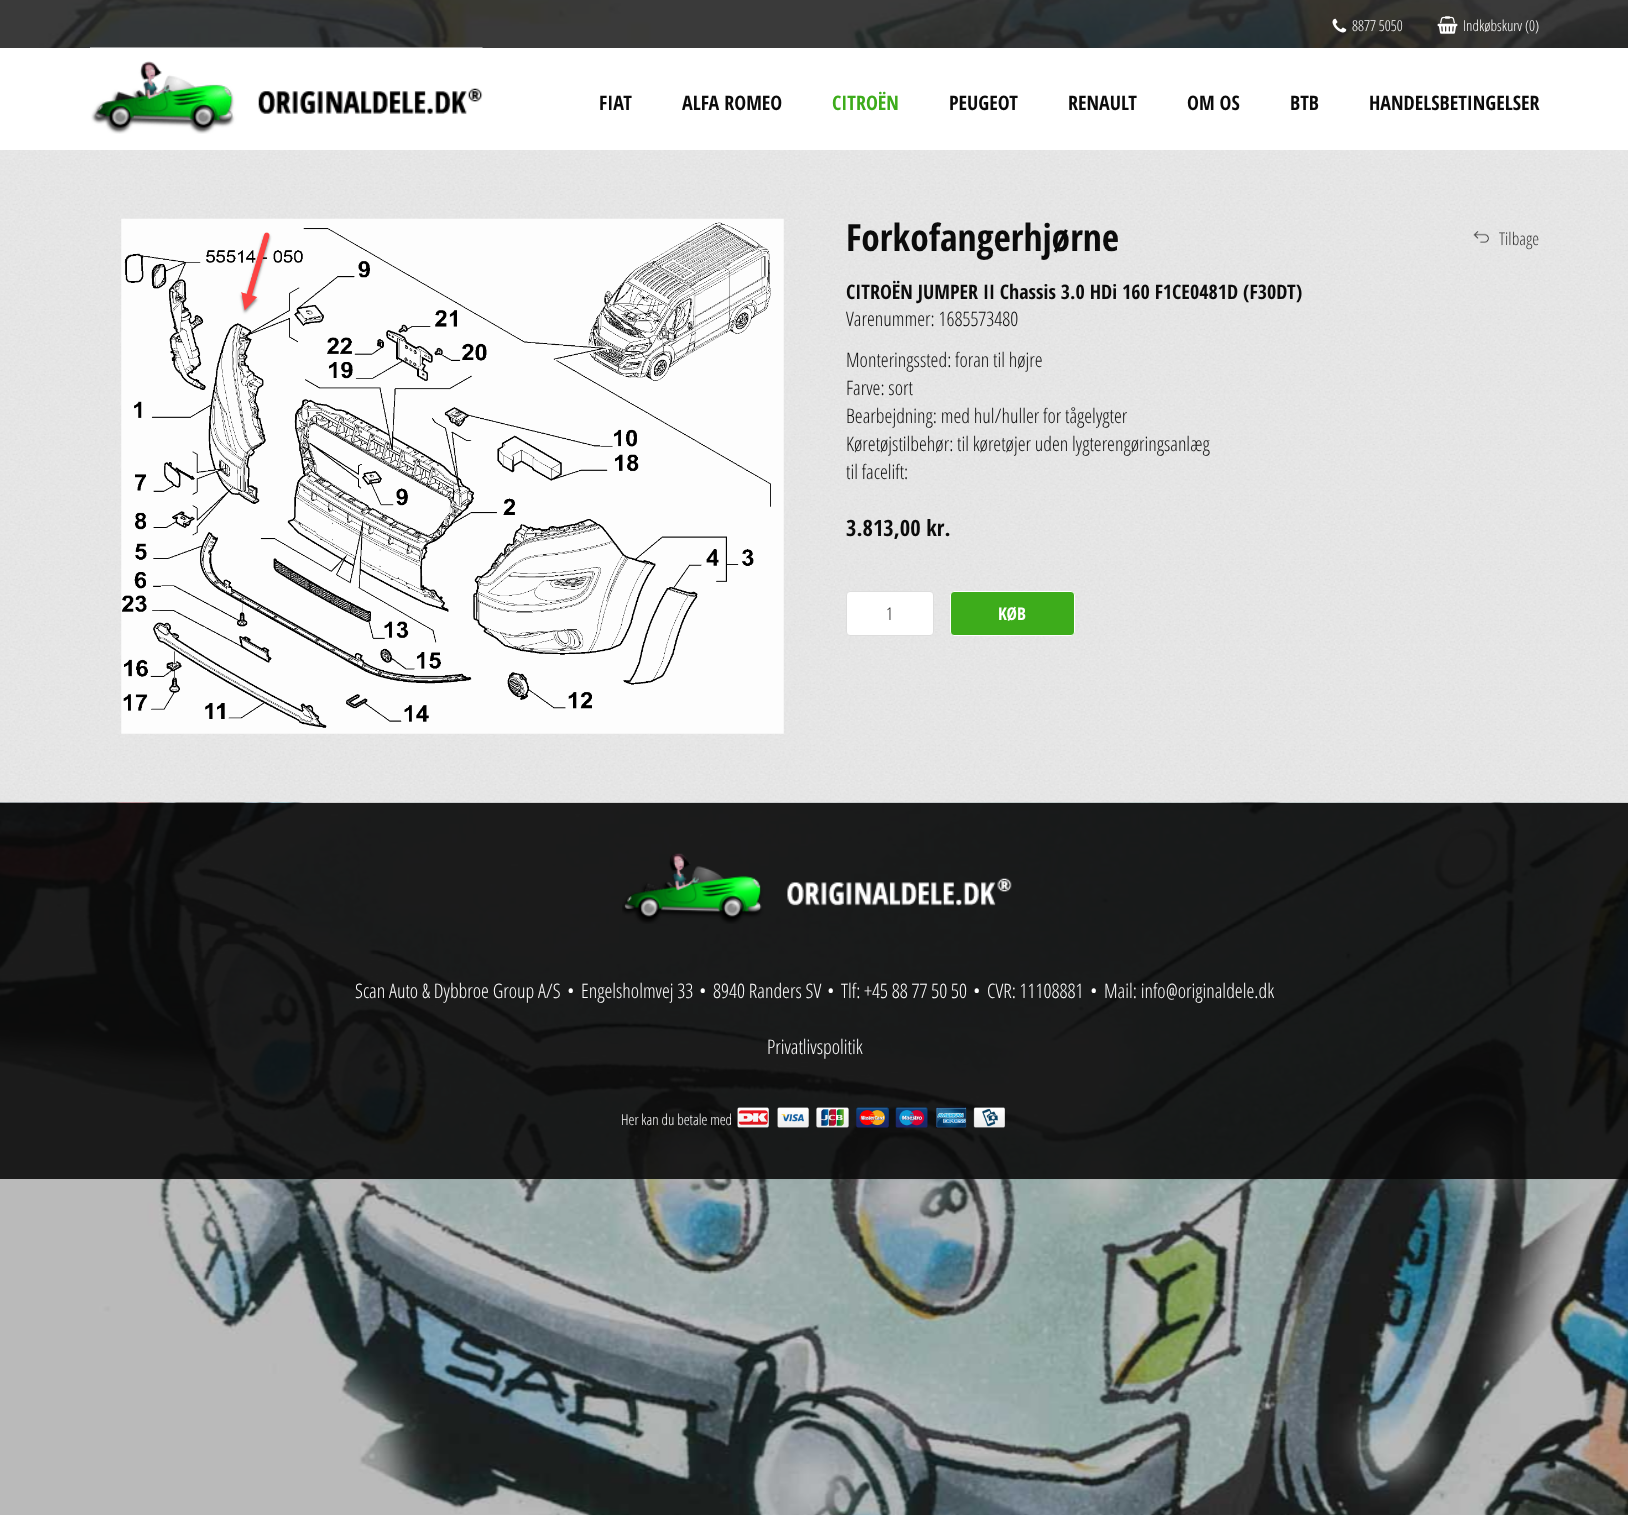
<svg xmlns="http://www.w3.org/2000/svg" xmlns:xlink="http://www.w3.org/1999/xlink" width="1628" height="1515" viewBox="0 0 1628 1515">
<style>
.cls-1{font:300 15px Open Sans Condensed;fill:#ffffff}
.cls-2{font:bold 20px Open Sans Condensed;fill:#0b0b0b}
.cls-3{font:bold 20px Open Sans Condensed;fill:#3dac1b}
.cls-4{font:bold 37.5px Open Sans Condensed;fill:#0b0b0b}
.cls-5{font:300 20px Open Sans Condensed;fill:#0b0b0b}
.cls-6{font:bold 22.5px Open Sans Condensed;fill:#0b0b0b}
.cls-7{font:300 17.5px Open Sans Condensed;fill:#0b0b0b}
.cls-8{font:bold 17.5px Open Sans Condensed;fill:#ffffff}
.cls-9{font:300 17.5px Open Sans Condensed;fill:#333333}
.cls-10{font:300 20px Open Sans Condensed;fill:#ffffff}
</style>
<rect width="100%" height="100%" fill="#ffffff"/>
<image xlink:href="image0.png" x="0" y="0" width="1628" height="1515"/>
<rect fill="#000000" fill-opacity="0.69" x="0" y="0" width="1628" height="48"/>
<image xlink:href="image1.png" x="1332" y="18" width="15" height="15"/>
<image xlink:href="image2.png" x="1437" y="16" width="21" height="18"/>
<rect fill="#ffffff" x="0" y="48" width="1628" height="102"/>
<image xlink:href="image3.png" x="90" y="47" width="393" height="87"/>
<image xlink:href="image4.png" x="0" y="150" width="1628" height="653"/>
<image xlink:href="image5.png" x="121" y="218" width="663" height="516"/>
<rect fill="#ffffff" stroke="#dddddd" x="846.5" y="591.5" width="87" height="44" rx="3.5"/>
<rect fill="#3dac1b" stroke="#ffffff" x="950.5" y="591.5" width="124" height="44" rx="3.5"/>
<image xlink:href="image6.png" x="1473" y="231" width="16" height="12"/>
<rect fill="#0a0a0a" fill-opacity="0.9" x="0" y="803" width="1628" height="376"/>
<image xlink:href="image7.png" x="622" y="853" width="390" height="71"/>
<image xlink:href="image8.png" x="737" y="1107" width="32" height="21"/>
<image xlink:href="image9.png" x="777" y="1107" width="32" height="21"/>
<image xlink:href="image10.png" x="816" y="1107" width="33" height="21"/>
<image xlink:href="image11.png" x="856" y="1107" width="33" height="21"/>
<image xlink:href="image12.png" x="895" y="1107" width="33" height="21"/>
<image xlink:href="image13.png" x="936" y="1107" width="31" height="21"/>
<image xlink:href="image14.png" x="973" y="1107" width="32" height="21"/>
<text class="cls-1" x="1352" y="31">8877 5050</text>
<text class="cls-1" x="1463" y="31">Indkøbskurv (0)</text>
<text class="cls-2" x="599" y="110">FIAT</text>
<text class="cls-2" x="682" y="110">ALFA ROMEO</text>
<text class="cls-3" x="832" y="110">CITROËN</text>
<text class="cls-2" x="949" y="110">PEUGEOT</text>
<text class="cls-2" x="1068" y="110">RENAULT</text>
<text class="cls-2" x="1187" y="110">OM OS</text>
<text class="cls-2" x="1290" y="110">BTB</text>
<text class="cls-2" x="1369" y="110">HANDELSBETINGELSER</text>
<text class="cls-4" x="846" y="251">Forkofangerhjørne</text>
<text class="cls-2" x="846" y="299">CITROËN JUMPER II Chassis 3.0 HDi 160 F1CE0481D (F30DT)</text>
<text class="cls-5" x="846" y="326">Varenummer: 1685573480</text>
<text class="cls-5"><tspan x="846" y="367">Monteringssted: foran til højre</tspan><tspan x="846" y="395">Farve: sort</tspan><tspan x="846" y="423">Bearbejdning: med hul/huller for tågelygter</tspan><tspan x="846" y="451">Køretøjstilbehør: til køretøjer uden lygterengøringsanlæg</tspan><tspan x="846" y="479">til facelift:</tspan></text>
<text class="cls-6" x="846" y="536">3.813,00 kr.</text>
<text class="cls-7" x="886" y="620">1</text>
<text class="cls-8" x="998" y="620">KØB</text>
<text class="cls-9" x="1499" y="245">Tilbage</text>
<text class="cls-10" x="355" y="998">Scan Auto &amp; Dybbroe Group A/S</text>
<text class="cls-10" x="567" y="998">•</text>
<text class="cls-10" x="581" y="998">Engelsholmvej 33</text>
<text class="cls-10" x="699" y="998">•</text>
<text class="cls-10" x="713" y="998">8940 Randers SV</text>
<text class="cls-10" x="827" y="998">•</text>
<text class="cls-10" x="841" y="998">Tlf: +45 88 77 50 50</text>
<text class="cls-10" x="973" y="998">•</text>
<text class="cls-10" x="987" y="998">CVR: 11108881</text>
<text class="cls-10" x="1090" y="998">•</text>
<text class="cls-10" x="1104" y="998">Mail: info@originaldele.dk</text>
<text class="cls-10" x="767" y="1054">Privatlivspolitik</text>
<text class="cls-1" x="621" y="1125">Her kan du betale med</text>
</svg>
